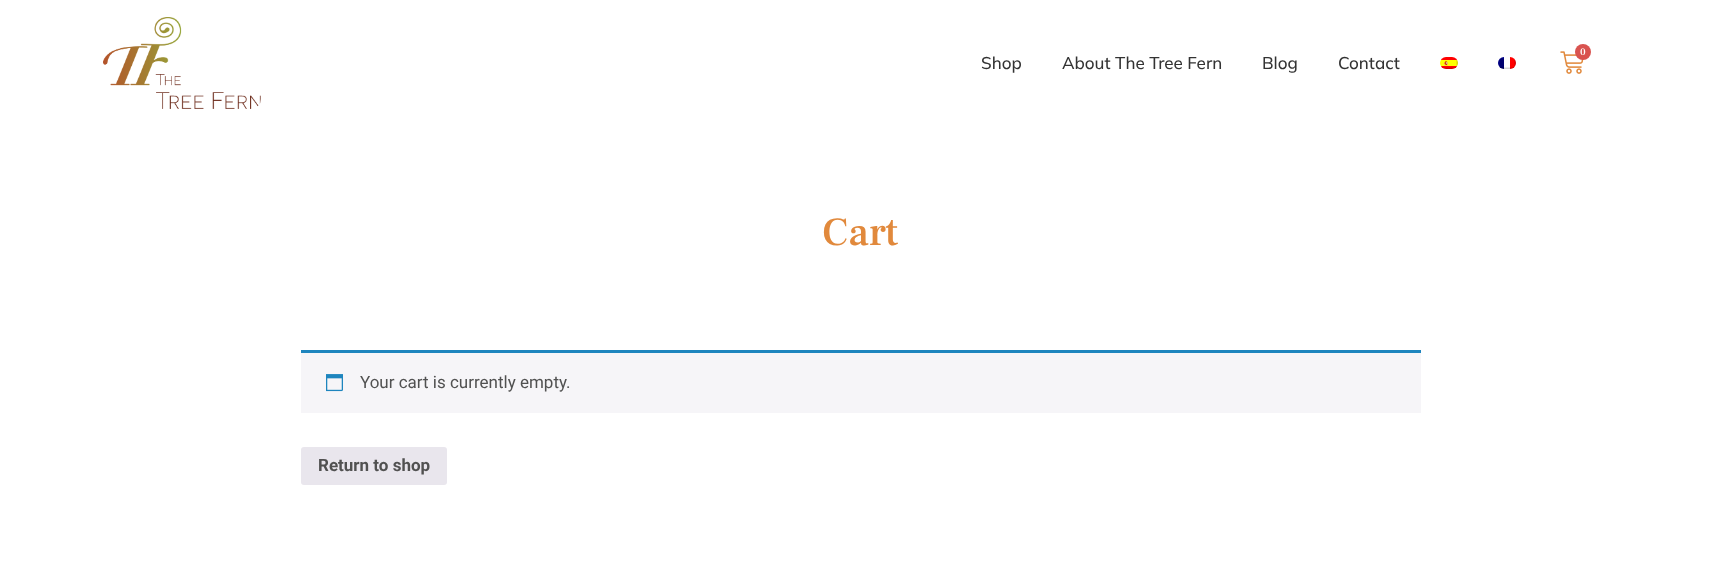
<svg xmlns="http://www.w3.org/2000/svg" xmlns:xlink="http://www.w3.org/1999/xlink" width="1721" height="561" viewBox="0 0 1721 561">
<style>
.cls-1{font:500 10px Frank Ruhl Libre;fill:#ffffff}
.cls-2{font:500 17px Mulish;fill:#333333}
.cls-3{font:500 40px Frank Ruhl Libre;fill:#e1893c}
.cls-4{font:17px Roboto;fill:#515151}
.cls-5{font:bold 17px Roboto;fill:#515151}
</style>
<rect width="100%" height="100%" fill="#ffffff"/>
<image xlink:href="image0.png" x="103" y="17" width="158" height="92"/>
<image xlink:href="image1.png" x="1560" y="51" width="24" height="23"/>
<circle fill="#d9534f" cx="1583" cy="52" r="8"/>
<image xlink:href="image2.png" x="1440" y="57" width="18" height="12"/>
<image xlink:href="image3.png" x="1498" y="57" width="18" height="12"/>
<rect fill="#f6f5f8" x="301" y="353" width="1120" height="60"/>
<rect fill="#1e85be" x="301" y="350" width="1120" height="3"/>
<image xlink:href="image4.png" x="326" y="374" width="17" height="18"/>
<rect fill="#e9e6ed" x="301" y="447" width="146" height="38" rx="3"/>
<text class="cls-1" x="1580" y="55">0</text>
<text class="cls-2" x="981" y="69">Shop</text>
<text class="cls-2" x="1062" y="69">About The Tree Fern</text>
<text class="cls-2" x="1262" y="69">Blog</text>
<text class="cls-2" x="1338" y="69">Contact</text>
<text class="cls-3" x="822" y="245">Cart</text>
<text class="cls-4" x="360" y="388">Your cart is currently empty.</text>
<text class="cls-5" x="318" y="471">Return to shop</text>
</svg>
